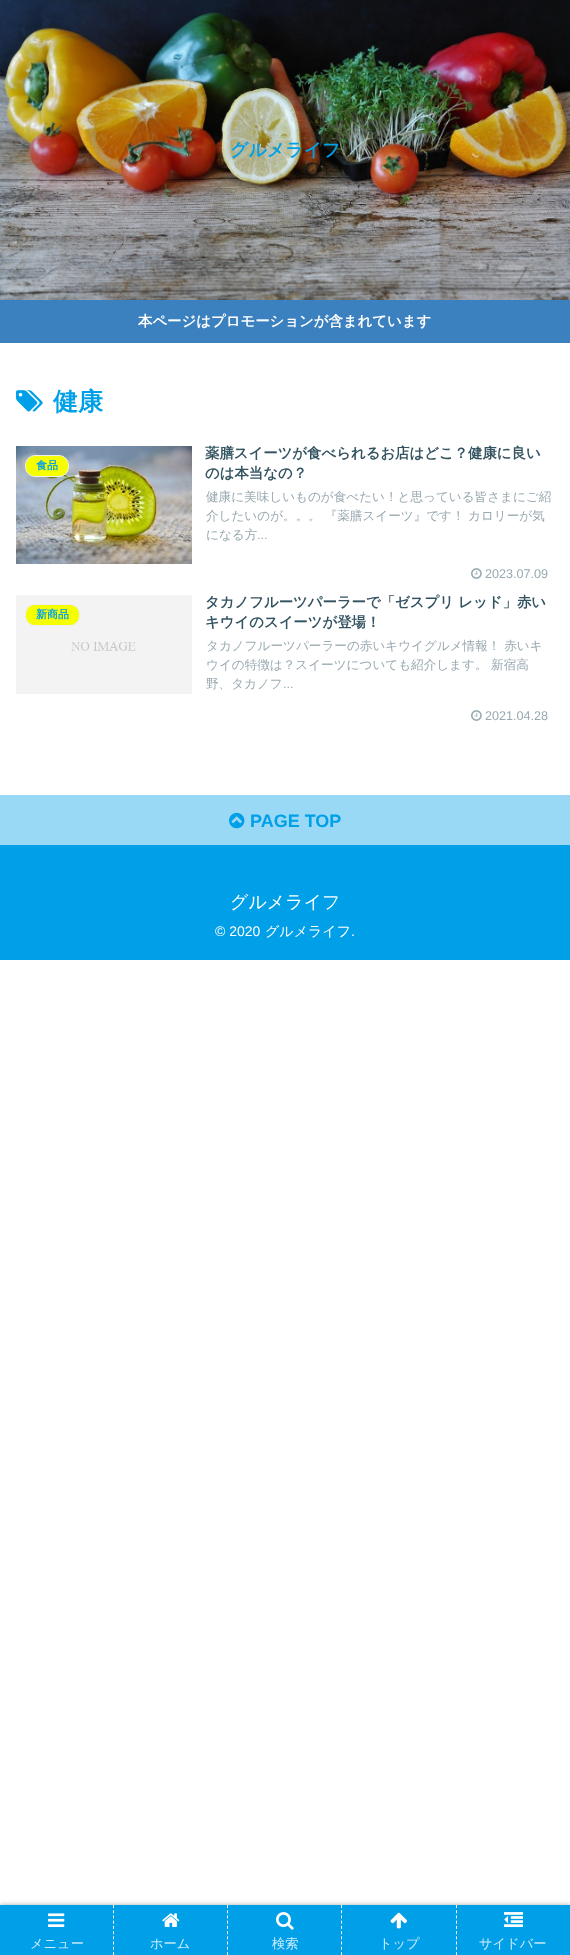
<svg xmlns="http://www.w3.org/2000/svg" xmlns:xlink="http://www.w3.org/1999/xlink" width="570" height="1955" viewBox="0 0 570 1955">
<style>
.cls-1{font:bold 18px WenQuanYi Zen Hei;fill:#00a0e9}
.cls-2{font:bold 14.4px WenQuanYi Zen Hei;fill:#ffffff}
.cls-3{font:bold 25px WenQuanYi Zen Hei;fill:#00a0e9}
.cls-4{font:bold 11px WenQuanYi Zen Hei;fill:#00a0e9}
.cls-5{font:bold 14.4px WenQuanYi Zen Hei;fill:#335361}
.cls-6{font:500 12.6px WenQuanYi Zen Hei;fill:#99a9b0}
.cls-7{font:12.6px Liberation Sans;fill:#99a9b0}
.cls-8{font:bold 18px Liberation Sans;fill:#00a0e9}
.cls-9{font:500 18px WenQuanYi Zen Hei;fill:#ffffff}
.cls-10{font:14px Liberation Sans;fill:#ffffff}
.cls-11{font:500 14px WenQuanYi Zen Hei;fill:#ffffff}
.cls-12{font:500 13.25px WenQuanYi Zen Hei;fill:#ccecfb}
</style>
<rect width="100%" height="100%" fill="#ffffff"/>
<image xlink:href="image0.png" x="0" y="0" width="570" height="300"/>
<rect fill="#3b81bf" x="0" y="300" width="570" height="43"/>
<image xlink:href="image1.png" x="16" y="390" width="27" height="22"/>
<image xlink:href="image2.png" x="16" y="446" width="176" height="118"/>
<rect fill="#f6ff00" stroke="#eeeeee" x="25.5" y="455.5" width="43" height="21" rx="9.5"/>
<image xlink:href="image3.png" x="471" y="568" width="11" height="11"/>
<image xlink:href="image4.png" x="16" y="595" width="176" height="99"/>
<rect fill="#f6ff00" stroke="#eeeeee" x="25.5" y="604.5" width="54" height="21" rx="9.5"/>
<image xlink:href="image3.png" x="471" y="710" width="11" height="11"/>
<rect fill="#99d9f6" x="0" y="795" width="570" height="50"/>
<image xlink:href="image5.png" x="229" y="812" width="16" height="17"/>
<rect fill="#00a0e9" x="0" y="845" width="570" height="115"/>
<rect fill="#a9a9a9" filter="blur(2.5px)" x="0" y="1905" width="570" height="50"/>
<rect fill="#00a0e9" x="0" y="1905" width="570" height="50"/>
<path fill="none" stroke="#ffffff" stroke-dasharray="3 2.22" d="M113.5 1905V1955"/>
<image xlink:href="image6.png" x="48" y="1913" width="17" height="14"/>
<path fill="none" stroke="#ffffff" stroke-dasharray="3 2.22" d="M227.5 1905V1955"/>
<image xlink:href="image7.png" x="162" y="1913" width="18" height="14"/>
<path fill="none" stroke="#ffffff" stroke-dasharray="3 2.22" d="M341.5 1905V1955"/>
<image xlink:href="image8.png" x="276" y="1912" width="18" height="18"/>
<path fill="none" stroke="#ffffff" stroke-dasharray="3 2.22" d="M456.5 1905V1955"/>
<image xlink:href="image9.png" x="390" y="1912" width="17" height="17"/>
<image xlink:href="image10.png" x="504" y="1912" width="19" height="15"/>
<text class="cls-1" x="230" y="156">グルメライフ</text>
<text class="cls-2" x="138" y="326">本ページはプロモーションが含まれています</text>
<text class="cls-3" x="53" y="410">健康</text>
<text class="cls-4" x="36" y="469">食品</text>
<text class="cls-5"><tspan x="205" y="458">薬膳スイーツが食べられるお店はどこ？健康に良い</tspan><tspan x="205" y="478">のは本当なの？</tspan></text>
<text class="cls-6"><tspan x="206" y="501">健康に美味しいものが食べたい！と思っている皆さまにご紹</tspan><tspan x="206" y="520">介したいのが。。。 『薬膳スイーツ』です！</tspan></text>
<text class="cls-6" x="468" y="520">カロリーが気</text>
<text class="cls-6" x="206" y="539">になる方</text>
<text class="cls-7" x="257" y="539">...</text>
<text class="cls-7" x="485" y="578">2023.07.09</text>
<text class="cls-4" x="36" y="618">新商品</text>
<text class="cls-5"><tspan x="205" y="607">タカノフルーツパーラーで「ゼスプリ レッド」赤い</tspan><tspan x="205" y="627">キウイのスイーツが登場！</tspan></text>
<text class="cls-6"><tspan x="206" y="650">タカノフルーツパーラーの赤いキウイグルメ情報！ 赤いキ</tspan><tspan x="206" y="669">ウイの特徴は？スイーツについても紹介します。</tspan></text>
<text class="cls-6" x="491" y="669">新宿高</text>
<text class="cls-6" x="206" y="688">野、タカノフ</text>
<text class="cls-7" x="283" y="688">...</text>
<text class="cls-7" x="485" y="720">2021.04.28</text>
<text class="cls-8" x="250" y="827">PAGE TOP</text>
<text class="cls-9" x="230" y="908">グルメライフ</text>
<text class="cls-10" x="215" y="936">© 2020</text>
<text class="cls-11" x="265" y="936">グルメライフ</text>
<text class="cls-10" x="351" y="936">.</text>
<text class="cls-12" x="30" y="1948">メニュー</text>
<text class="cls-12" x="150" y="1948">ホーム</text>
<text class="cls-12" x="272" y="1948">検索</text>
<text class="cls-12" x="379" y="1948">トップ</text>
<text class="cls-12" x="479" y="1948">サイドバー</text>
</svg>
